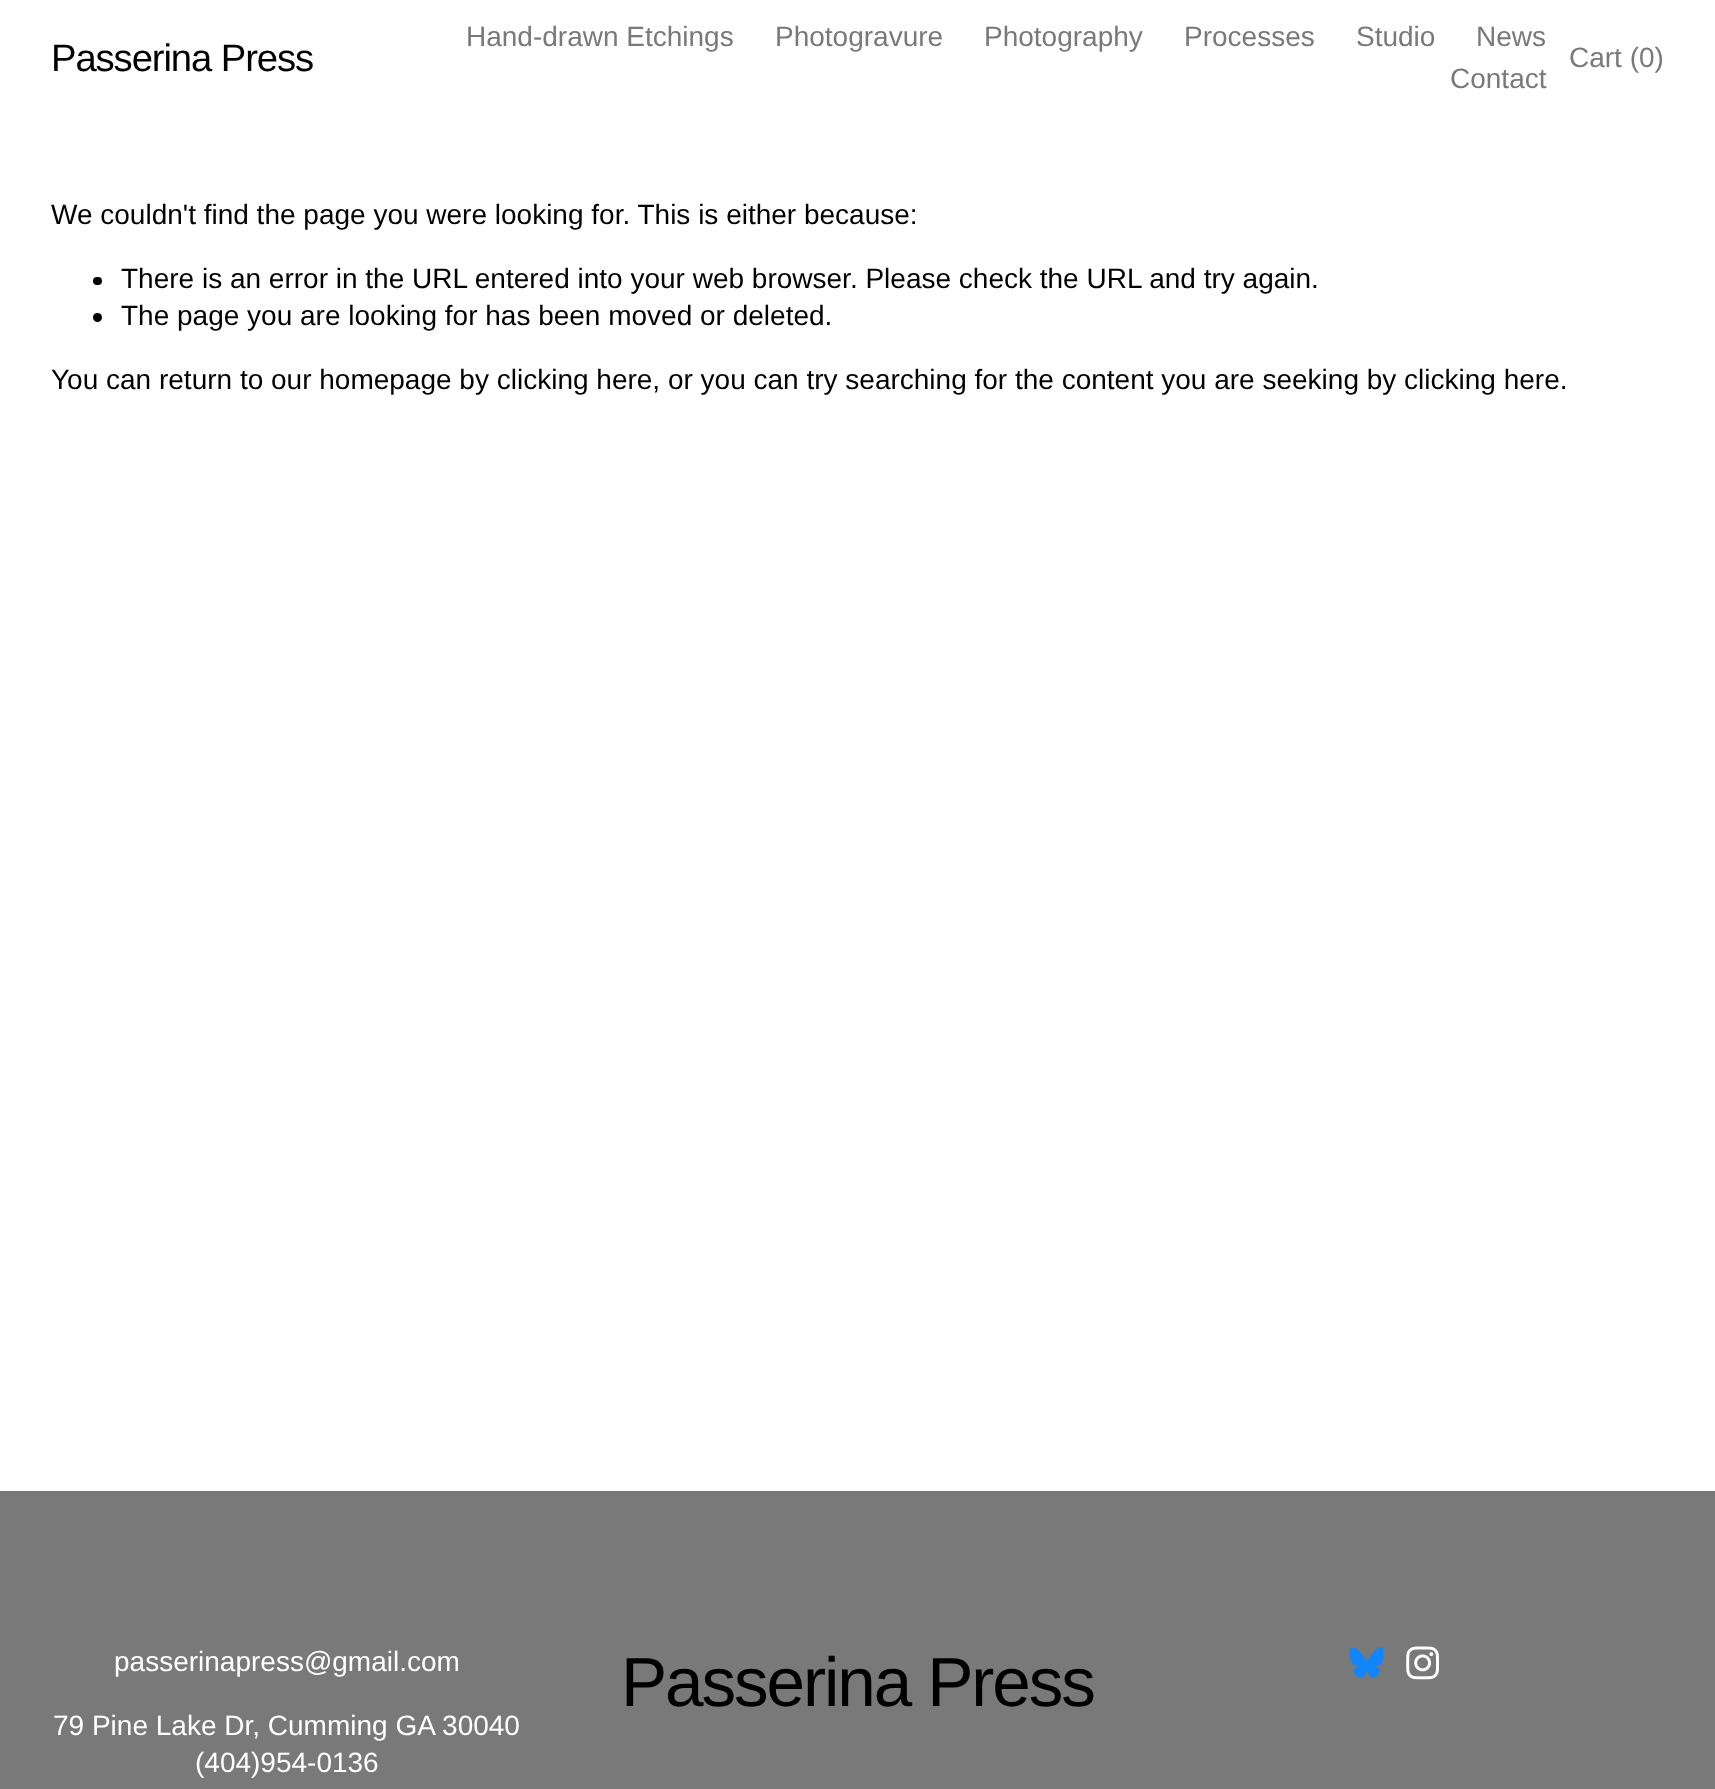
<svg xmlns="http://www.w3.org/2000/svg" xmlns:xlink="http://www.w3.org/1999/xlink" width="1715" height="1789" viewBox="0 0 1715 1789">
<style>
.cls-1{font:38.25px Liberation Sans;letter-spacing:-1.1px;fill:#000000}
.cls-2{font:28px Liberation Sans;fill:#797979}
.cls-3{font:28px Liberation Sans;fill:#000000}
.cls-4{font:28px Liberation Sans;fill:#ffffff}
.cls-5{font:69.25px Liberation Sans;letter-spacing:-2.1px;fill:#000000}
</style>
<rect width="100%" height="100%" fill="#ffffff"/>
<rect fill="#000000" x="93" y="277" width="9" height="8" rx="4"/>
<circle fill="#000000" cx="97.5" cy="317.5" r="4.5"/>
<rect fill="#797979" x="0" y="1491" width="1715" height="298"/>
<image xlink:href="image0.png" x="1349" y="1646" width="36" height="33"/>
<image xlink:href="image1.png" x="1406" y="1646" width="33" height="34"/>
<text class="cls-1" x="51" y="71">Passerina Press</text>
<text class="cls-2" x="466" y="46">Hand-drawn Etchings</text>
<text class="cls-2" x="775" y="46">Photogravure</text>
<text class="cls-2" x="984" y="46">Photography</text>
<text class="cls-2" x="1184" y="46">Processes</text>
<text class="cls-2" x="1356" y="46">Studio</text>
<text class="cls-2" x="1476" y="46">News</text>
<text class="cls-2" x="1450" y="88">Contact</text>
<text class="cls-2" x="1569" y="67">Cart (0)</text>
<text class="cls-3" x="51" y="224">We couldn't find the page you were looking for. This is either because:</text>
<text class="cls-3"><tspan x="121" y="288">There is an error in the URL entered into your web browser. Please check the URL and try again.</tspan><tspan x="121" y="325">The page you are looking for has been moved or deleted.</tspan></text>
<text class="cls-3" x="51" y="389">You can return to our homepage by clicking here, or you can try searching for the content you are seeking by clicking here.</text>
<text class="cls-4" x="114" y="1671">passerinapress@gmail.com</text>
<text class="cls-4" x="53" y="1735">79 Pine Lake Dr, Cumming GA 30040</text>
<text class="cls-4" x="195" y="1772">(404)954-0136</text>
<text class="cls-5" x="621" y="1706">Passerina Press</text>
</svg>
